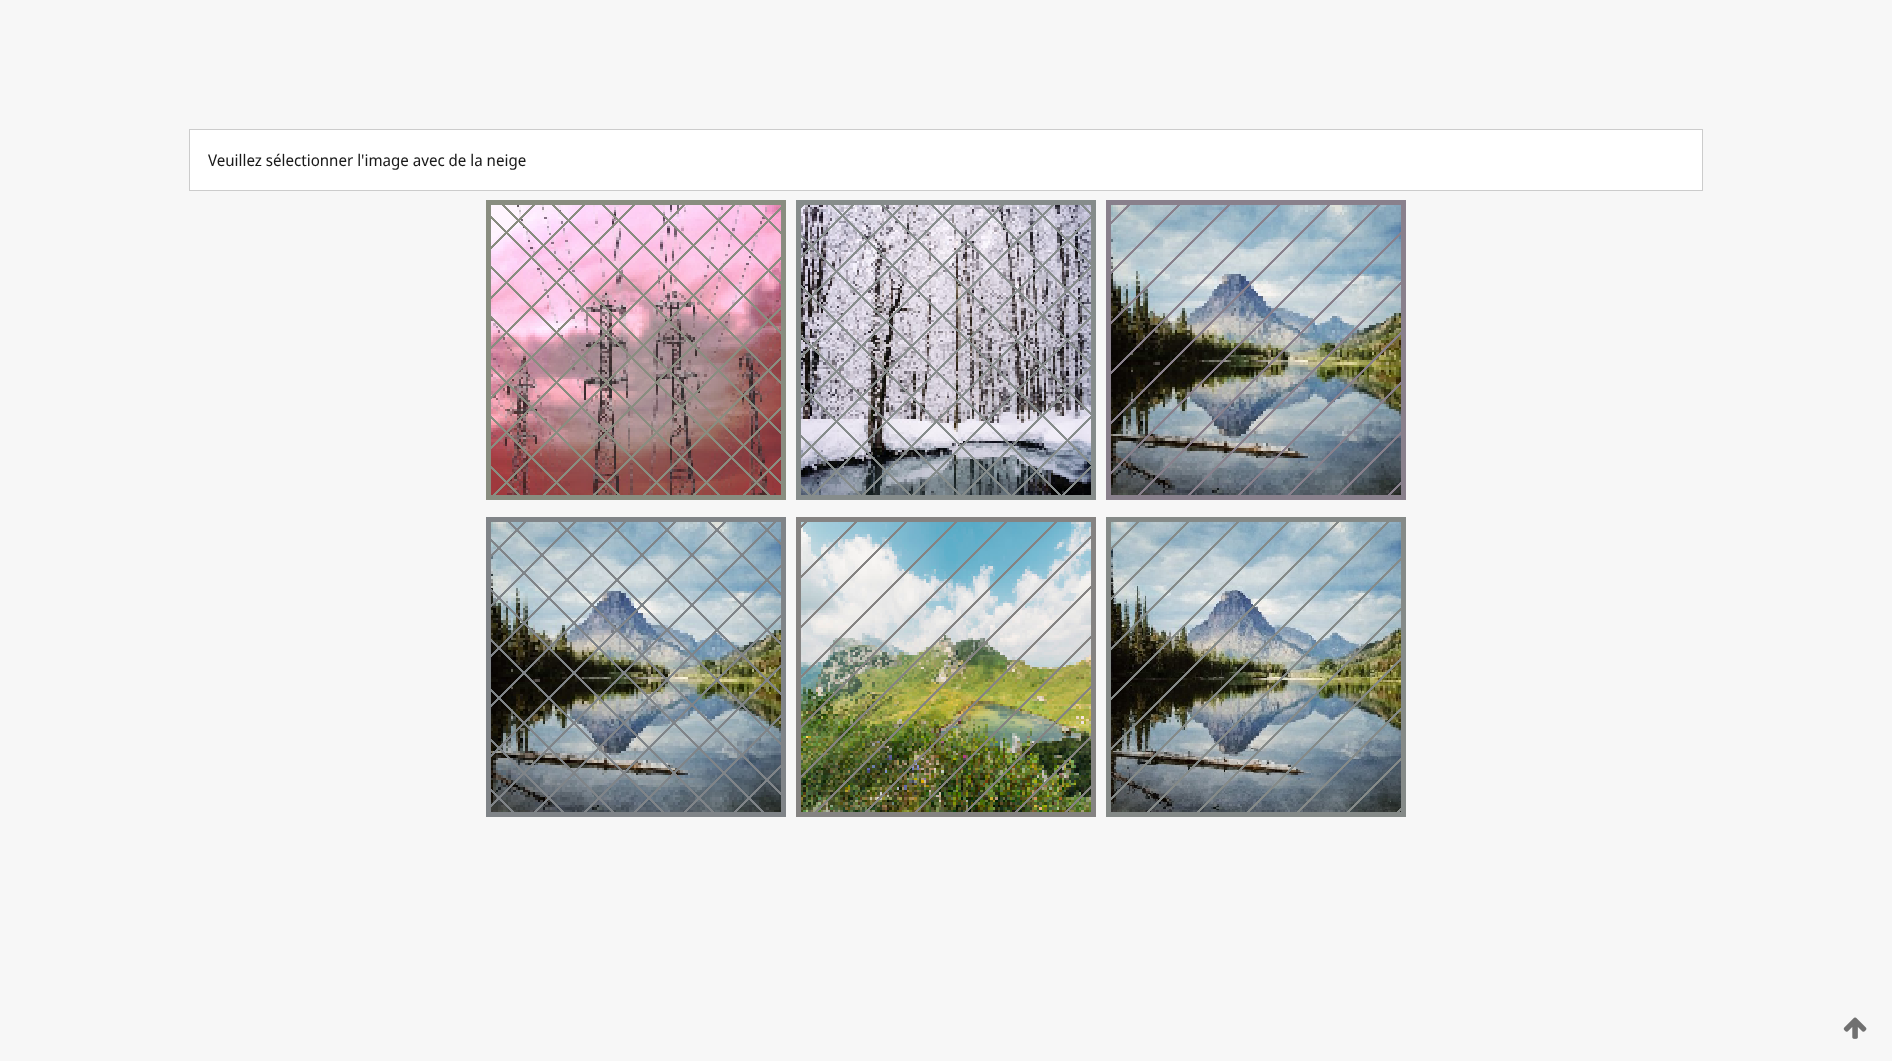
<svg xmlns="http://www.w3.org/2000/svg" xmlns:xlink="http://www.w3.org/1999/xlink" width="1892" height="1061" viewBox="0 0 1892 1061">
<style>
.cls-1{font:16px Noto Sans Display;fill:#1a1a1a}
</style>
<rect width="100%" height="100%" fill="#f7f7f7"/>
<rect fill="#ffffff" stroke="#cccccc" x="189.5" y="129.5" width="1513" height="61"/>
<image xlink:href="image0.png" x="486" y="200" width="300" height="300"/>
<image xlink:href="image1.png" x="796" y="200" width="300" height="300"/>
<image xlink:href="image2.png" x="1106" y="200" width="300" height="300"/>
<image xlink:href="image3.png" x="486" y="517" width="300" height="300"/>
<image xlink:href="image4.png" x="796" y="517" width="300" height="300"/>
<image xlink:href="image5.png" x="1106" y="517" width="300" height="300"/>
<image xlink:href="image6.png" x="1843" y="1017" width="24" height="22"/>
<text class="cls-1" x="208" y="166">Veuillez sélectionner l'image avec de la neige</text>
</svg>
